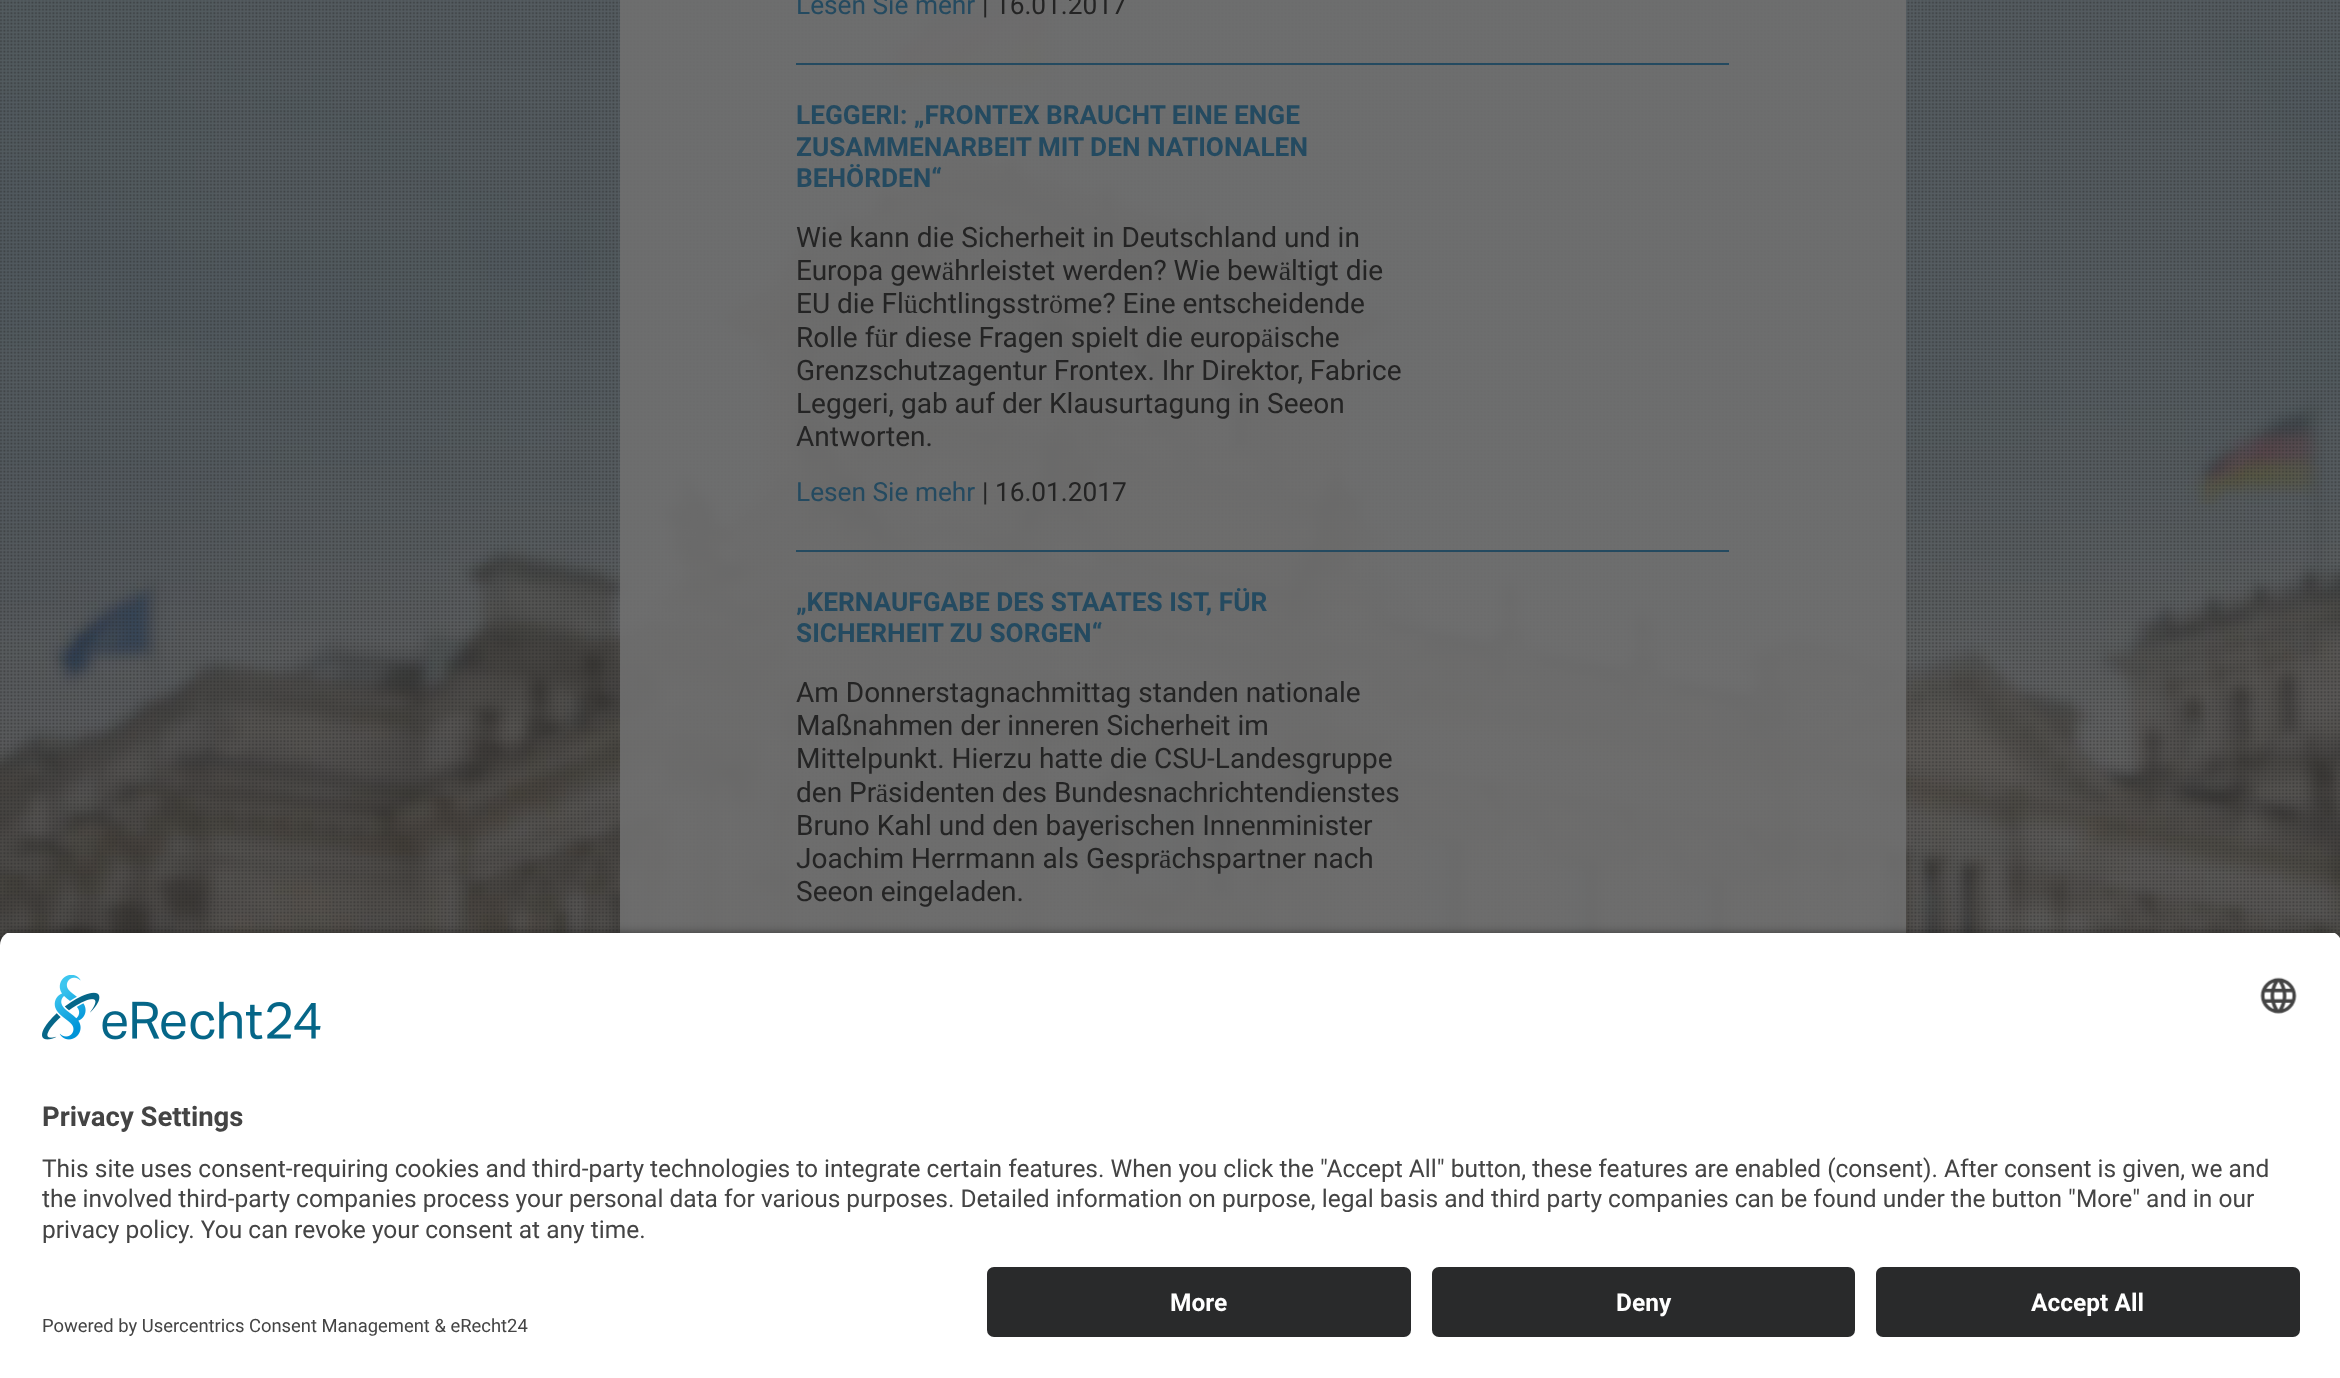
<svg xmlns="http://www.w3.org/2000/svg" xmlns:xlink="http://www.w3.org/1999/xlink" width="2340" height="1378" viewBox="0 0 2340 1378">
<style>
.cls-1{font:26.25px Roboto;fill:#244a60}
.cls-2{font:26.25px Roboto;fill:#242424}
.cls-3{font:bold 26.25px Roboto;fill:#244a60}
.cls-4{font:28px Roboto;fill:#242424}
.cls-5{font:bold 27.5px Roboto;fill:#444444}
.cls-6{font:24.5px Roboto;fill:#444444}
.cls-7{font:bold 24.5px Roboto;fill:#ffffff}
.cls-8{font:18.4px Roboto;fill:#444444}
</style>
<defs>
<clipPath id="clip1"><path d="M14 931H2328C2335.5 931 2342 937.5 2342 945V1253H0V945C0 937.5 6.5 931 14 931Z"/></clipPath>
</defs>
<rect width="100%" height="100%" fill="#ffffff"/>
<image xlink:href="image0.png" x="0" y="0" width="2340" height="945"/>
<rect fill="#707070" fill-opacity="0.9" x="620" y="0" width="1286" height="933"/>
<rect fill="#244a60" x="796" y="63" width="933" height="2"/>
<rect fill="#244a60" x="796" y="550" width="933" height="2"/>
<rect fill="#000000" fill-opacity="0.8" filter="blur(6px)" x="0" y="936" width="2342" height="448" rx="14"/>
<g clip-path="url(#clip1)">
<rect fill="#ffffff" x="0" y="933" width="2340" height="320"/>
</g>
<image xlink:href="image1.png" x="42" y="975" width="279" height="65"/>
<image xlink:href="image2.png" x="2260" y="977" width="37" height="37"/>
<rect fill="#ffffff" x="0" y="1253" width="2340" height="125"/>
<rect fill="#292a2b" x="987" y="1267" width="424" height="70" rx="7"/>
<rect fill="#292a2b" x="1432" y="1267" width="423" height="70" rx="7"/>
<rect fill="#292a2b" x="1876" y="1267" width="424" height="70" rx="7"/>
<text class="cls-1" x="796" y="14">Lesen Sie mehr</text>
<text class="cls-2" x="982" y="14">| 16.01.2017</text>
<text class="cls-3"><tspan x="796" y="124">LEGGERI: „FRONTEX BRAUCHT EINE ENGE</tspan><tspan x="796" y="156">ZUSAMMENARBEIT MIT DEN NATIONALEN</tspan><tspan x="796" y="187">BEHÖRDEN“</tspan></text>
<text class="cls-4"><tspan x="796" y="247">Wie kann die Sicherheit in Deutschland und in</tspan><tspan x="796" y="280">Europa gewährleistet werden? Wie bewältigt die</tspan><tspan x="796" y="313">EU die Flüchtlingsströme? Eine entscheidende</tspan><tspan x="796" y="347">Rolle für diese Fragen spielt die europäische</tspan><tspan x="796" y="380">Grenzschutzagentur Frontex. Ihr Direktor, Fabrice</tspan><tspan x="796" y="413">Leggeri, gab auf der Klausurtagung in Seeon</tspan><tspan x="796" y="446">Antworten.</tspan></text>
<text class="cls-1" x="796" y="501">Lesen Sie mehr</text>
<text class="cls-2" x="982" y="501">| 16.01.2017</text>
<text class="cls-3"><tspan x="796" y="611">„KERNAUFGABE DES STAATES IST, FÜR</tspan><tspan x="796" y="642">SICHERHEIT ZU SORGEN“</tspan></text>
<text class="cls-4"><tspan x="796" y="702">Am Donnerstagnachmittag standen nationale</tspan><tspan x="796" y="735">Maßnahmen der inneren Sicherheit im</tspan><tspan x="796" y="768">Mittelpunkt. Hierzu hatte die CSU-Landesgruppe</tspan><tspan x="796" y="802">den Präsidenten des Bundesnachrichtendienstes</tspan><tspan x="796" y="835">Bruno Kahl und den bayerischen Innenminister</tspan><tspan x="796" y="868">Joachim Herrmann als Gesprächspartner nach</tspan><tspan x="796" y="901">Seeon eingeladen.</tspan></text>
<text class="cls-5" x="42" y="1126">Privacy Settings</text>
<text class="cls-6"><tspan x="42" y="1177">This site uses consent-requiring cookies and third-party technologies to integrate certain features. When you click the "Accept All" button, these features are enabled (consent). After consent is given, we and</tspan><tspan x="42" y="1207">the involved third-party companies process your personal data for various purposes. Detailed information on purpose, legal basis and third party companies can be found under the button "More" and in our</tspan><tspan x="42" y="1238">privacy policy. You can revoke your consent at any time.</tspan></text>
<text class="cls-7" x="1170" y="1311">More</text>
<text class="cls-7" x="1616" y="1311">Deny</text>
<text class="cls-7" x="2031" y="1311">Accept All</text>
<text class="cls-8" x="42" y="1332">Powered by Usercentrics Consent Management &amp; eRecht24</text>
</svg>
